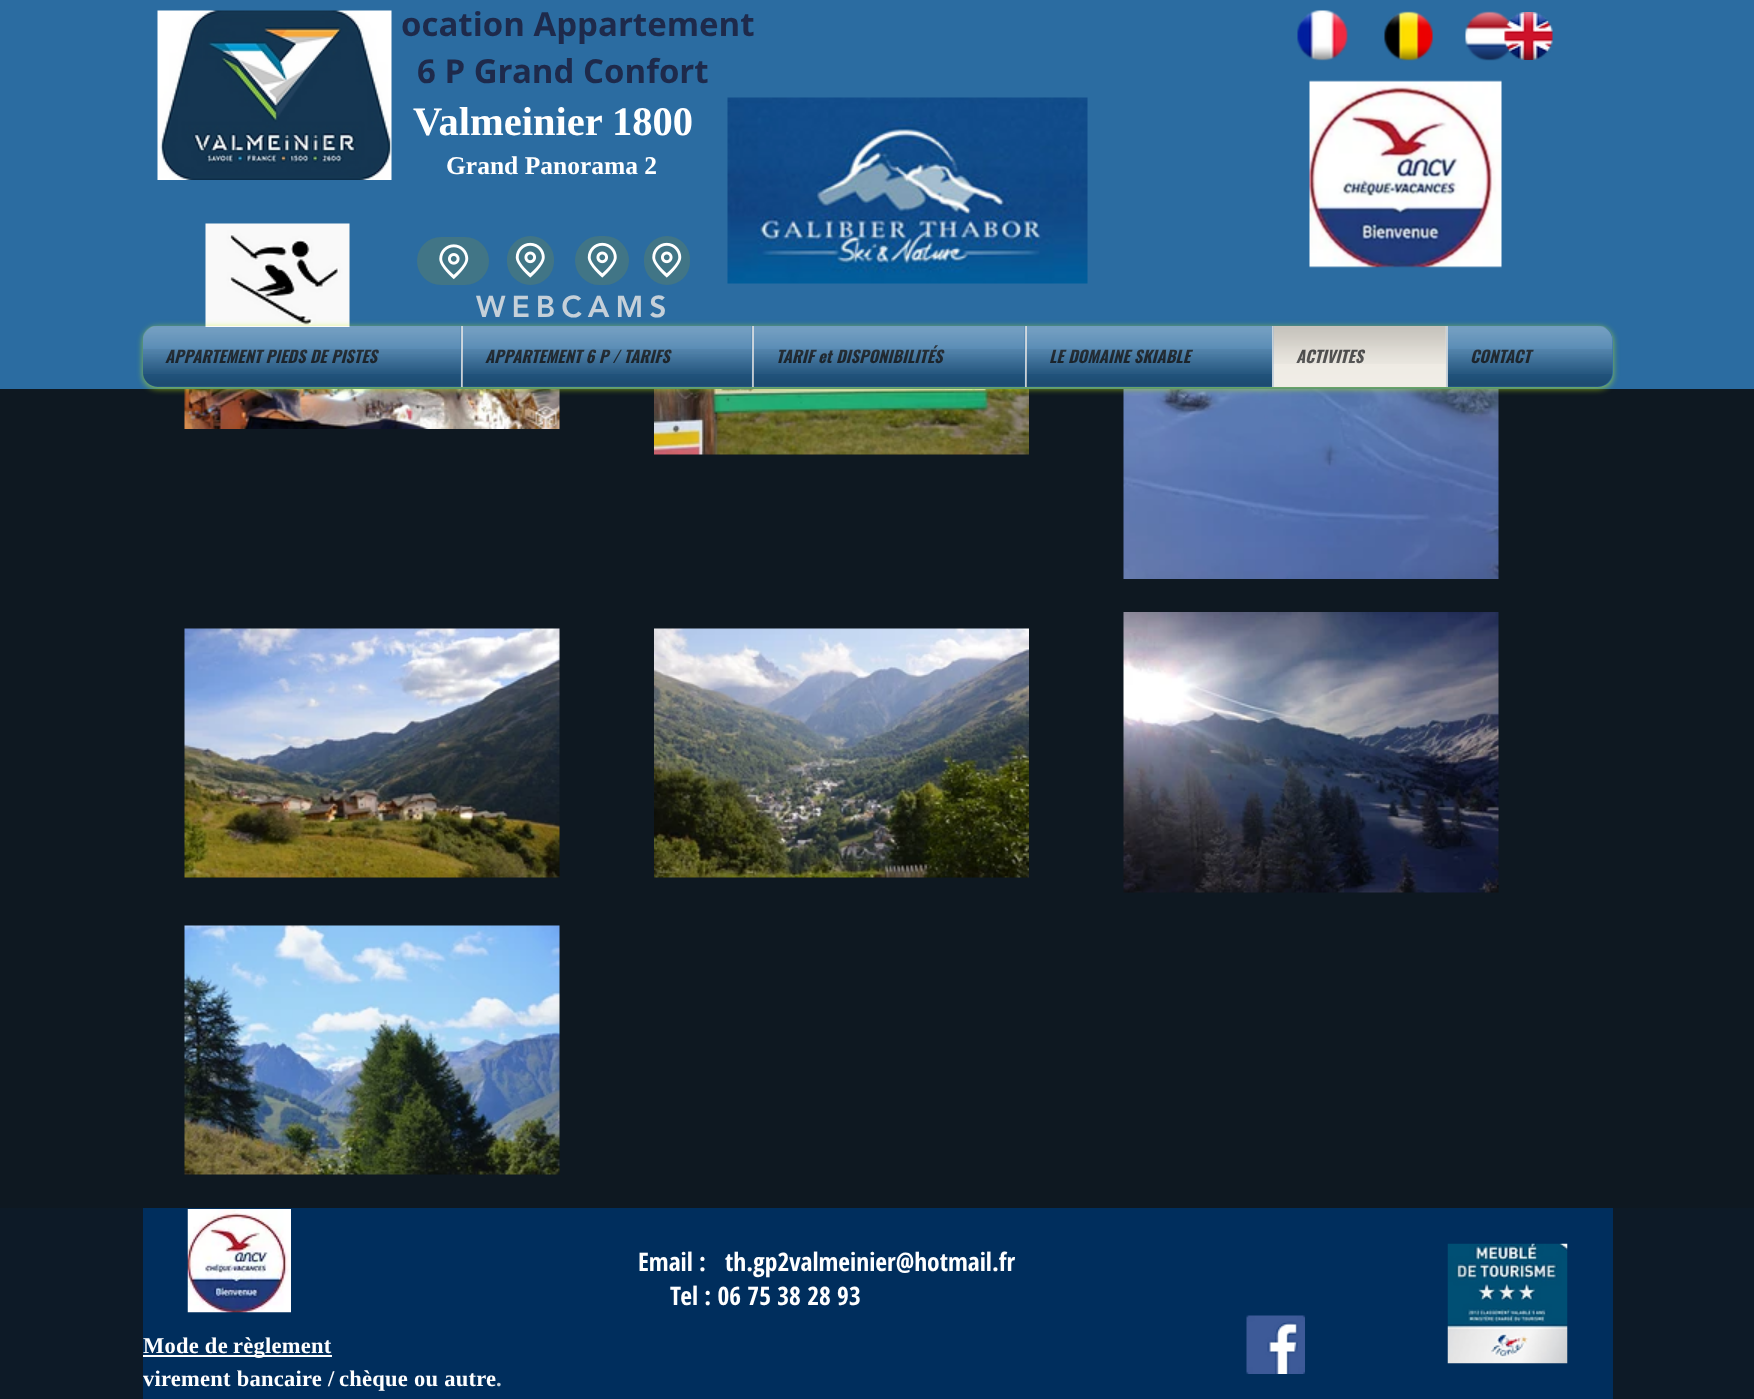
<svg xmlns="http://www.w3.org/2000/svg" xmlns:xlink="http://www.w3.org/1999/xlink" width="1754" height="1399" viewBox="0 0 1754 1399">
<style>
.cls-1{font:bold 33px Open Sans;fill:#1e2a4b}
.cls-2{font:bold 40.5px Liberation Serif;fill:#ffffff}
.cls-3{font:bold 25.5px Liberation Serif;fill:#ffffff}
.cls-4{font:900 30px 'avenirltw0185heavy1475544';letter-spacing:6px;fill:#c5d0d9}
.cls-5{font:italic bold 16.5px Oswald;fill:#0e1821}
.cls-6{font:italic bold 16.5px Oswald;fill:#444444}
.cls-7{font:bold 25.5px Open Sans Condensed;fill:#ffffff}
.cls-8{font:bold 22.5px Liberation Serif;letter-spacing:0.25px;fill:#ffffff}
.cls-9{font:bold 22.5px Liberation Serif;letter-spacing:0.25px;fill:#c5d0d9}
</style>
<defs>
<clipPath id="clip1"><path d="M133 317H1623V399H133ZM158 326H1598C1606.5 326 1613 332.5 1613 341V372C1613 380.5 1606.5 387 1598 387H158C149.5 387 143 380.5 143 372V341C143 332.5 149.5 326 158 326Z" clip-rule="evenodd"/></clipPath>
</defs>
<rect width="100%" height="100%" fill="#0e1821"/>
<rect fill="#2b6ca1" x="0" y="0" width="1754" height="389"/>
<image xlink:href="image0.png" x="157" y="10" width="235" height="170"/>
<image xlink:href="image1.png" x="1297" y="10" width="51" height="51"/>
<image xlink:href="image2.png" x="1384" y="11" width="49" height="50"/>
<image xlink:href="image3.png" x="1465" y="11" width="48" height="50"/>
<image xlink:href="image4.png" x="1504" y="12" width="49" height="48"/>
<image xlink:href="image5.png" x="205" y="223" width="145" height="104"/>
<rect fill="#417586" x="417" y="237" width="72" height="48" rx="24"/>
<image xlink:href="image6.png" x="439" y="244" width="30" height="36"/>
<rect fill="#417586" x="507" y="236" width="47" height="49" rx="23.5"/>
<image xlink:href="image7.png" x="515" y="242" width="30" height="36"/>
<rect fill="#417586" x="575" y="236" width="54" height="49" rx="24.5"/>
<image xlink:href="image7.png" x="587" y="242" width="30" height="36"/>
<rect fill="#417586" x="644" y="236" width="46" height="49" rx="23"/>
<image xlink:href="image8.png" x="652" y="242" width="30" height="36"/>
<image xlink:href="image9.png" x="727" y="97" width="361" height="187"/>
<image xlink:href="image10.png" x="1309" y="80" width="193" height="188"/>
<image xlink:href="image25.png" x="184" y="389" width="376" height="40"/>
<image xlink:href="image26.png" x="654" y="389" width="375" height="66"/>
<image xlink:href="image27.png" x="1123" y="389" width="376" height="190"/>
<g clip-path="url(#clip1)">
<rect fill="#c7f511" fill-opacity="0.6" filter="blur(3px)" x="143" y="327" width="1470" height="62" rx="15"/>
</g>
<image xlink:href="image11.png" x="143" y="326" width="1470" height="48"/>
<image xlink:href="image12.png" x="143" y="349" width="1470" height="38"/>
<rect fill="#c5d0d9" x="461" y="326" width="2" height="61"/>
<rect fill="#c5d0d9" x="752" y="326" width="2" height="61"/>
<rect fill="#c5d0d9" x="1025" y="326" width="2" height="61"/>
<rect fill="#ede9e1" x="1274" y="326" width="172" height="61"/>
<rect fill="#c5d0d9" x="1272" y="326" width="2" height="61"/>
<rect fill="#c5d0d9" x="1446" y="326" width="2" height="61"/>
<image xlink:href="image28.png" x="184" y="628" width="376" height="250"/>
<image xlink:href="image29.png" x="654" y="628" width="375" height="250"/>
<image xlink:href="image30.png" x="1123" y="612" width="376" height="281"/>
<image xlink:href="image31.png" x="184" y="925" width="376" height="250"/>
<rect fill="#0d1a27" x="0" y="1208" width="1754" height="191"/>
<rect fill="#002e5d" x="143" y="1208" width="1470" height="191"/>
<image xlink:href="image32.png" x="187" y="1209" width="104" height="104"/>
<image xlink:href="image33.png" x="1447" y="1243" width="121" height="121"/>
<rect fill="#ffffff" x="143" y="1355" width="189" height="2"/>
<image xlink:href="image34.png" x="1246" y="1315" width="59" height="59"/>
<text class="cls-1" x="401" y="36">ocation Appartement</text>
<text class="cls-1" x="417" y="83">6 P Grand Confort</text>
<text class="cls-2" x="413" y="135">Valmeinier 1800</text>
<text class="cls-3" x="446" y="174">Grand Panorama 2</text>
<text class="cls-4" x="476" y="317">WEBCAMS</text>
<text class="cls-5" x="165" y="363">APPARTEMENT PIEDS DE PISTES</text>
<image xlink:href="image13.png" x="143" y="326" width="318" height="48"/>
<image xlink:href="image14.png" x="143" y="349" width="318" height="38"/>
<text class="cls-5" x="485" y="363">APPARTEMENT 6 P / TARIFS</text>
<image xlink:href="image15.png" x="462" y="326" width="290" height="48"/>
<image xlink:href="image16.png" x="462" y="349" width="290" height="38"/>
<text class="cls-5" x="776" y="363">TARIF et DISPONIBILITÉS</text>
<image xlink:href="image17.png" x="753" y="326" width="272" height="48"/>
<image xlink:href="image18.png" x="752" y="349" width="273" height="38"/>
<text class="cls-5" x="1049" y="363">LE DOMAINE SKIABLE</text>
<image xlink:href="image19.png" x="1026" y="326" width="246" height="48"/>
<image xlink:href="image20.png" x="1026" y="349" width="246" height="38"/>
<text class="cls-6" x="1296" y="363">ACTIVITES</text>
<image xlink:href="image21.png" x="1273" y="326" width="173" height="38"/>
<image xlink:href="image22.png" x="1273" y="346" width="173" height="41"/>
<text class="cls-5" x="1470" y="363">CONTACT</text>
<image xlink:href="image23.png" x="1448" y="326" width="164" height="48"/>
<image xlink:href="image24.png" x="1447" y="349" width="165" height="38"/>
<text class="cls-7" x="638" y="1271">Email :</text>
<text class="cls-7" x="725" y="1271">th.gp2valmeinier@hotmail.fr</text>
<text class="cls-7" x="670" y="1305">Tel : 06 75 38 28 93</text>
<text class="cls-8" x="143" y="1353">Mode de</text>
<text class="cls-8" x="233" y="1353">règlement</text>
<text class="cls-8" x="143" y="1386">virement bancaire /</text>
<text class="cls-8" x="339" y="1386">chèque</text>
<text class="cls-8" x="414" y="1386">ou autre</text>
<text class="cls-9" x="496" y="1386">.</text>
</svg>
